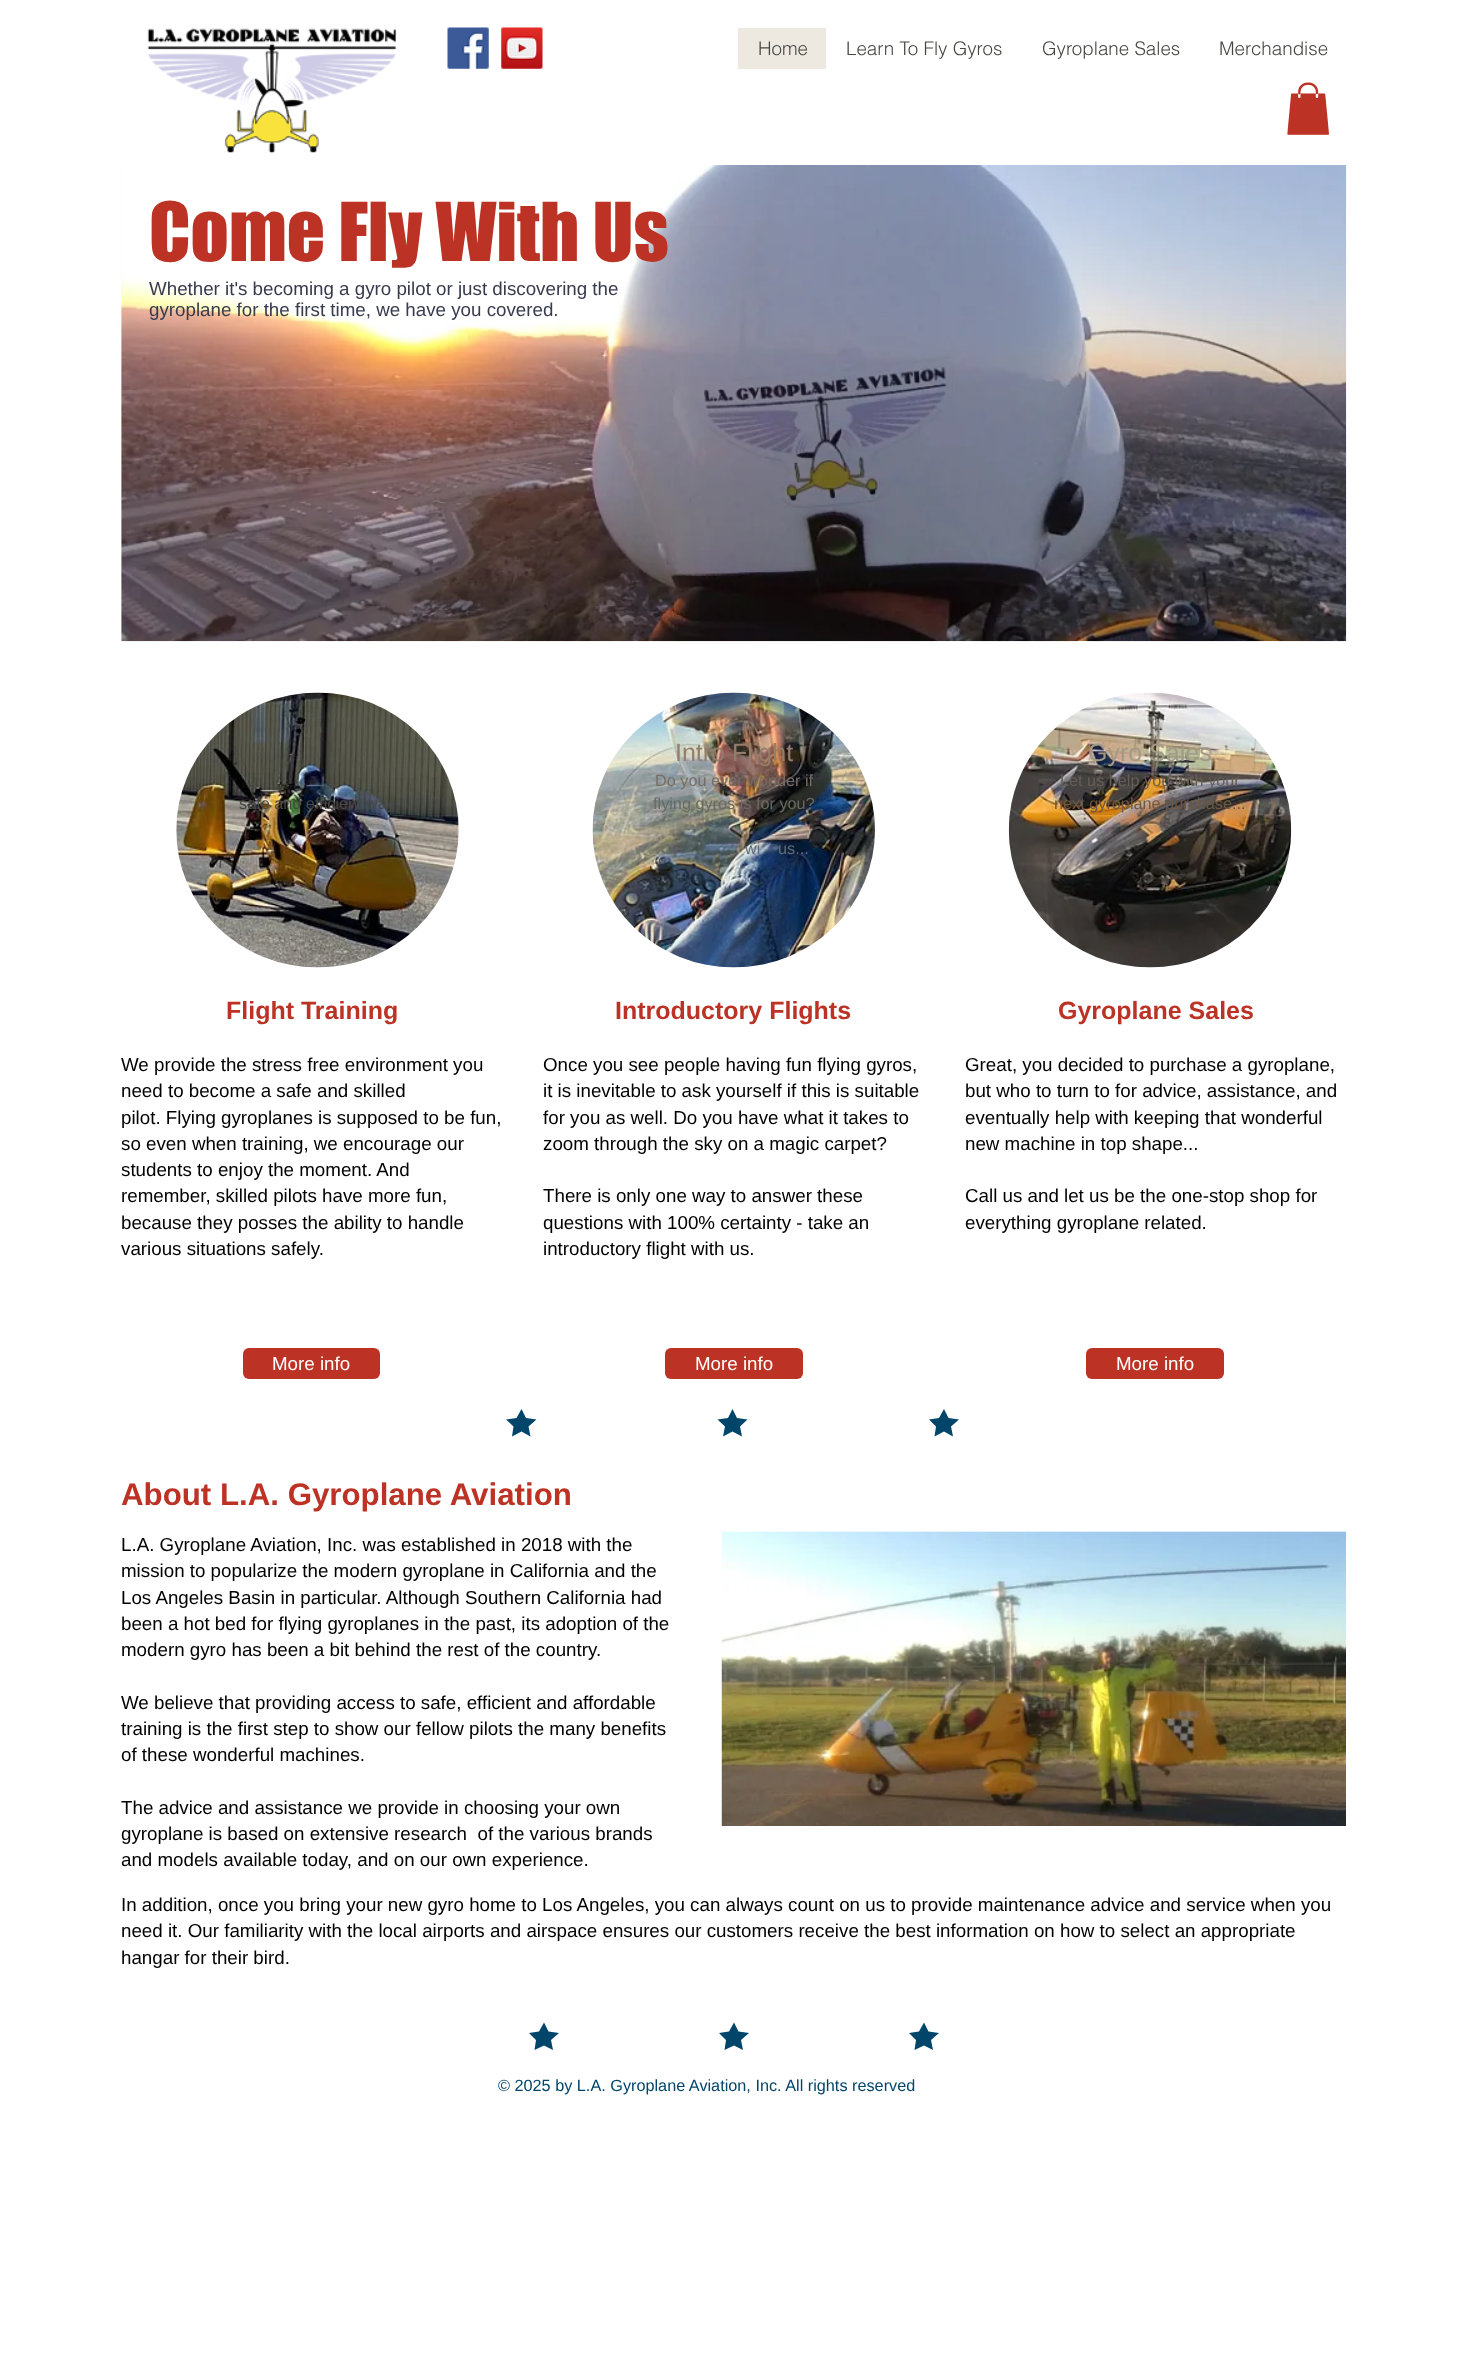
<svg xmlns="http://www.w3.org/2000/svg" xmlns:xlink="http://www.w3.org/1999/xlink" width="1467" height="2379" viewBox="0 0 1467 2379">
<style>
.cls-1{font:300 18.75px helvetica;fill:#464844}
.cls-2{font:75px 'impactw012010';fill:#bc3225}
.cls-3{font:18.75px Liberation Sans;fill:#373b4d}
.cls-4{font:16.25px Liberation Sans;fill:#464844}
.cls-5{font:25px Liberation Sans;fill:#937d6d}
.cls-6{font:16.25px Liberation Sans;fill:#776d66}
.cls-7{font:16.25px Liberation Sans;fill:#6a6a63}
.cls-8{font:16.25px Liberation Sans;fill:#5f6c77}
.cls-9{font:25px Liberation Sans;fill:#a39a86}
.cls-10{font:16.25px Liberation Sans;fill:#665d54}
.cls-11{font:16.25px Liberation Sans;fill:#6e5841}
.cls-12{font:bold 25px Liberation Sans;fill:#bc3225}
.cls-13{font:18.75px Liberation Sans;fill:#000000}
.cls-14{font:18.75px Liberation Sans;fill:#ffffff}
.cls-15{font:bold 31.25px Liberation Sans;fill:#bc3225}
.cls-16{font:16.25px Liberation Sans;fill:#01456a}
</style>
<rect width="100%" height="100%" fill="#ffffff"/>
<image xlink:href="image0.png" x="147" y="28" width="250" height="125"/>
<image xlink:href="image1.png" x="447" y="27" width="42" height="42"/>
<image xlink:href="image2.png" x="501" y="27" width="42" height="42"/>
<rect fill="#ede9e1" x="738" y="28" width="88" height="41"/>
<image xlink:href="image3.png" x="1287" y="82" width="42" height="53"/>
<rect fill="#fafaeb" x="121" y="165" width="1" height="476"/>
<image xlink:href="image4.png" x="121" y="165" width="1226" height="477"/>
<image xlink:href="image5.png" x="176" y="692" width="283" height="276"/>
<image xlink:href="image6.png" x="592" y="692" width="283" height="276"/>
<image xlink:href="image7.png" x="1008" y="692" width="284" height="276"/>
<rect fill="#bc3225" x="243" y="1348" width="137" height="31" rx="6"/>
<rect fill="#bc3225" x="665" y="1348" width="138" height="31" rx="6"/>
<rect fill="#bc3225" x="1086" y="1348" width="138" height="31" rx="6"/>
<path fill="#01456a" d="M521.5 1409L526 1418L536.5 1419.5L528.5 1426.5L530.5 1436.5L521.5 1431.5L512 1436.5L513.5 1426.5L506 1419.5L516.5 1418Z"/>
<path fill="#01456a" d="M732.5 1409L737 1418L747.5 1419.5L740 1426.5L742 1436.5L732.5 1431.5L723 1436.5L725 1426.5L717.5 1419.5L728 1418Z"/>
<path fill="#01456a" d="M944 1409L948.5 1418L959 1419.5L951 1426.5L953 1436.5L944 1431.5L934.5 1436.5L936 1426.5L929 1419.5L939 1418Z"/>
<image xlink:href="image8.png" x="721" y="1531" width="625" height="295"/>
<path fill="#01456a" d="M544 2022.5L548.5 2031.5L559 2033L551 2040L553 2050L544 2045.5L534.5 2050L536 2040L529 2033L539 2031.5Z"/>
<path fill="#01456a" d="M734 2022.5L738.5 2031.5L749 2033L741 2040L743 2050L734 2045.5L724.5 2050L726 2040L719 2033L729 2031.5Z"/>
<path fill="#01456a" d="M924 2022.5L928.5 2031.5L939 2033L931 2040L933 2050L924 2045.5L914.5 2050L916 2040L909 2033L919 2031.5Z"/>
<text class="cls-1" x="758" y="55">Home</text>
<text class="cls-1" x="846" y="55">Learn To Fly Gyros</text>
<text class="cls-1" x="1042" y="55">Gyroplane Sales</text>
<text class="cls-1" x="1219" y="55">Merchandise</text>
<text class="cls-2" x="149" y="261">Come Fly With Us</text>
<text class="cls-3"><tspan x="149" y="295">Whether it's becoming a gyro pilot or just discovering the</tspan><tspan x="149" y="316">gyroplane for the first time, we have you covered.</tspan></text>
<text class="cls-4" x="239" y="809">safe and efficient way</text>
<text class="cls-5" x="675" y="761">Intro Flight</text>
<text class="cls-6" x="655" y="786">Do you ever wonder if</text>
<text class="cls-7" x="653" y="809">flying gyros is for you?</text>
<text class="cls-8" x="745" y="854">wi</text>
<text class="cls-8" x="778" y="854">us...</text>
<text class="cls-9" x="1088" y="761">Gyro Sales</text>
<text class="cls-10" x="1060" y="786">Let us help you with your</text>
<text class="cls-11" x="1054" y="809">next gyroplane purchase...</text>
<text class="cls-12" x="226" y="1019">Flight Training</text>
<text class="cls-13"><tspan x="121" y="1071">We provide the stress free environment you</tspan><tspan x="121" y="1097">need to become a safe and skilled</tspan><tspan x="121" y="1124">pilot. Flying gyroplanes is supposed to be fun,</tspan><tspan x="121" y="1150">so even when training, we encourage our</tspan><tspan x="121" y="1176">students to enjoy the moment. And</tspan><tspan x="121" y="1202">remember, skilled pilots have more fun,</tspan><tspan x="121" y="1229">because they posses the ability to handle</tspan><tspan x="121" y="1255">various situations safely.</tspan></text>
<text class="cls-12" x="615" y="1019">Introductory Flights</text>
<text class="cls-13"><tspan x="543" y="1071">Once you see people having fun flying gyros,</tspan><tspan x="543" y="1097">it is inevitable to ask yourself if this is suitable</tspan><tspan x="543" y="1124">for you as well. Do you have what it takes to</tspan><tspan x="543" y="1150">zoom through the sky on a magic carpet?</tspan></text>
<text class="cls-13"><tspan x="543" y="1202">There is only one way to answer these</tspan><tspan x="543" y="1229">questions with 100% certainty - take an</tspan><tspan x="543" y="1255">introductory flight with us.</tspan></text>
<text class="cls-12" x="1058" y="1019">Gyroplane Sales</text>
<text class="cls-13"><tspan x="965" y="1071">Great, you decided to purchase a gyroplane,</tspan><tspan x="965" y="1097">but who to turn to for advice, assistance, and</tspan><tspan x="965" y="1124">eventually help with keeping that wonderful</tspan><tspan x="965" y="1150">new machine in top shape...</tspan></text>
<text class="cls-13"><tspan x="965" y="1202">Call us and let us be the one-stop shop for</tspan><tspan x="965" y="1229">everything gyroplane related.</tspan></text>
<text class="cls-14" x="272" y="1370">More info</text>
<text class="cls-14" x="695" y="1370">More info</text>
<text class="cls-14" x="1116" y="1370">More info</text>
<text class="cls-15" x="121" y="1505">About L.A. Gyroplane Aviation</text>
<text class="cls-13"><tspan x="121" y="1551">L.A. Gyroplane Aviation, Inc. was established in 2018 with the</tspan><tspan x="121" y="1577">mission to popularize the modern gyroplane in California and the</tspan><tspan x="121" y="1604">Los Angeles Basin in particular. Although Southern California had</tspan><tspan x="121" y="1630">been a hot bed for flying gyroplanes in the past, its adoption of the</tspan><tspan x="121" y="1656">modern gyro has been a bit behind the rest of the country.</tspan></text>
<text class="cls-13"><tspan x="121" y="1709">We believe that providing access to safe, efficient and affordable</tspan><tspan x="121" y="1735">training is the first step to show our fellow pilots the many benefits</tspan><tspan x="121" y="1761">of these wonderful machines.</tspan></text>
<text class="cls-13" xml:space="preserve"><tspan x="121" y="1814">The advice and assistance we provide in choosing your own</tspan><tspan x="121" y="1840">gyroplane is based on extensive research  of the various brands</tspan><tspan x="121" y="1866">and models available today, and on our own experience.</tspan></text>
<text class="cls-13"><tspan x="121" y="1911">In addition, once you bring your new gyro home to Los Angeles, you can always count on us to provide maintenance advice and service when you</tspan><tspan x="121" y="1937">need it. Our familiarity with the local airports and airspace ensures our customers receive the best information on how to select an appropriate</tspan><tspan x="121" y="1964">hangar for their bird.</tspan></text>
<text class="cls-16" x="498" y="2091">© 2025 by L.A. Gyroplane Aviation, Inc. All rights reserved</text>
</svg>
